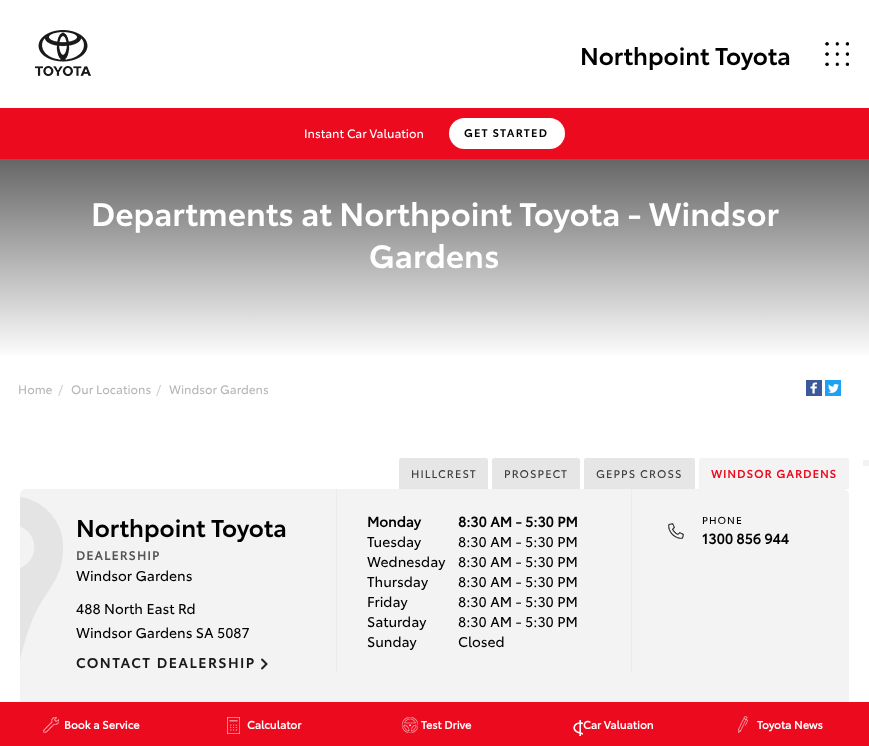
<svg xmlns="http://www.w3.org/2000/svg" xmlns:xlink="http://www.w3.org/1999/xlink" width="869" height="746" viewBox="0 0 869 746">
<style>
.cls-1{font:600 24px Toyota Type;fill:#000000}
.cls-2{font:12px Toyota Type;fill:#ffffff}
.cls-3{font:600 11px Toyota Type;letter-spacing:1.25px;fill:#000000}
.cls-4{font:600 32px Toyota Type;fill:#ffffff}
.cls-5{font:12px Toyota Type;fill:#b7b8bb}
.cls-6{font:12px Toyota Type;fill:#cccccc}
.cls-7{font:11px Toyota Type;letter-spacing:1.1px;fill:#3a3a3a}
.cls-8{font:bold 11px Toyota Type;letter-spacing:1.1px;fill:#eb0a1e}
.cls-9{font:bold 12px Toyota Type;letter-spacing:1.25px;fill:#545454}
.cls-10{font:14px Toyota Type;fill:#000000}
.cls-11{font:600 14px Toyota Type;letter-spacing:1.4px;fill:#1a1a1a}
.cls-12{font:bold 14px Toyota Type;fill:#000000}
.cls-13{font:10px Toyota Type;letter-spacing:1px;fill:#000000}
.cls-14{font:bold 11px Toyota Type;fill:#ffffff}
</style>
<defs>
<linearGradient id="g1" gradientUnits="userSpaceOnUse" x1="435" y1="159" x2="435" y2="359"><stop offset="0" stop-color="#666666"/><stop offset="1" stop-color="#ffffff"/></linearGradient>
</defs>
<rect width="100%" height="100%" fill="#ffffff"/>
<image xlink:href="image0.png" x="35" y="30" width="56" height="46"/>
<image xlink:href="image1.png" x="825" y="42" width="24" height="24"/>
<rect fill="#eb0a1e" x="0" y="108" width="869" height="51"/>
<rect fill="#ffffff" x="449" y="118" width="116" height="31" rx="15.5"/>
<rect fill="url(#g1)" x="0" y="159" width="869" height="197"/>
<rect fill="#3b5998" x="806" y="380" width="16" height="16"/>
<image xlink:href="image2.png" x="810" y="382" width="7" height="12"/>
<rect fill="#1da1f2" x="825" y="380" width="16" height="16"/>
<image xlink:href="image3.png" x="828" y="384" width="11" height="9"/>
<rect fill="#f3f3f3" x="863" y="460" width="6" height="6"/>
<path fill="#e6e6e6" d="M401 458H486C487 458 488 459 488 460V489H399V460C399 459 400 458 401 458Z"/>
<path fill="#e6e6e6" d="M494 458H578C579 458 580 459 580 460V489H492V460C492 459 493 458 494 458Z"/>
<path fill="#e6e6e6" d="M586 458H693C694 458 695 459 695 460V489H584V460C584 459 585 458 586 458Z"/>
<path fill="#f3f3f3" d="M701 458H847C848 458 849 459 849 460V489H699V460C699 459 700 458 701 458Z"/>
<path fill="#f3f3f3" d="M26 489H843C846.5 489 849 491.5 849 495V709H20V495C20 491.5 22.5 489 26 489Z"/>
<image xlink:href="image4.png" x="20" y="497" width="43" height="162"/>
<image xlink:href="image5.png" x="261" y="658" width="7" height="12"/>
<rect fill="#ebebeb" x="631" y="489" width="1" height="184"/>
<rect fill="#ebebeb" x="336" y="489" width="1" height="184"/>
<image xlink:href="image6.png" x="668" y="523" width="16" height="16"/>
<rect fill="#eb0a1e" x="0" y="702" width="869" height="44"/>
<image xlink:href="image7.png" x="43" y="717" width="16" height="16"/>
<image xlink:href="image8.png" x="227" y="717" width="13" height="17"/>
<image xlink:href="image9.png" x="402" y="717" width="16" height="16"/>
<image xlink:href="image10.png" x="573" y="720" width="10" height="16"/>
<image xlink:href="image11.png" x="738" y="716" width="10" height="17"/>
<text class="cls-1" x="580" y="65">Northpoint Toyota</text>
<text class="cls-2" x="304" y="138">Instant Car Valuation</text>
<text class="cls-3" x="464" y="137">GET STARTED</text>
<text class="cls-4" x="91" y="226">Departments at Northpoint Toyota - Windsor</text>
<text class="cls-4" x="369" y="268">Gardens</text>
<text class="cls-5" x="18" y="394">Home</text>
<text class="cls-6" x="58" y="394">/</text>
<text class="cls-5" x="71" y="394">Our Locations</text>
<text class="cls-6" x="156" y="394">/</text>
<text class="cls-5" x="169" y="394">Windsor Gardens</text>
<text class="cls-7" x="411" y="478">HILLCREST</text>
<text class="cls-7" x="504" y="478">PROSPECT</text>
<text class="cls-7" x="596" y="478">GEPPS CROSS</text>
<text class="cls-8" x="711" y="478">WINDSOR GARDENS</text>
<text class="cls-1" x="76" y="537">Northpoint Toyota</text>
<text class="cls-9" x="76" y="560">DEALERSHIP</text>
<text class="cls-10" x="76" y="581">Windsor Gardens</text>
<text class="cls-10"><tspan x="76" y="614">488 North East Rd</tspan><tspan x="76" y="638">Windsor Gardens SA 5087</tspan></text>
<text class="cls-11" x="76" y="668" word-spacing="1">CONTACT DEALERSHIP</text>
<text class="cls-12" x="367" y="527">Monday</text>
<text class="cls-12" x="458" y="527">8:30 AM - 5:30 PM</text>
<text class="cls-10" x="367" y="547">Tuesday</text>
<text class="cls-10" x="458" y="547">8:30 AM - 5:30 PM</text>
<text class="cls-10" x="367" y="567">Wednesday</text>
<text class="cls-10" x="458" y="567">8:30 AM - 5:30 PM</text>
<text class="cls-10" x="367" y="587">Thursday</text>
<text class="cls-10" x="458" y="587">8:30 AM - 5:30 PM</text>
<text class="cls-10" x="367" y="607">Friday</text>
<text class="cls-10" x="458" y="607">8:30 AM - 5:30 PM</text>
<text class="cls-10" x="367" y="627">Saturday</text>
<text class="cls-10" x="458" y="627">8:30 AM - 5:30 PM</text>
<text class="cls-10" x="367" y="647">Sunday</text>
<text class="cls-10" x="458" y="647">Closed</text>
<text class="cls-13" x="702" y="524">PHONE</text>
<text class="cls-12" x="702" y="544">1300 856 944</text>
<text class="cls-14" x="64" y="729">Book a Service</text>
<text class="cls-14" x="247" y="729">Calculator</text>
<text class="cls-14" x="421" y="729">Test Drive</text>
<text class="cls-14" x="583" y="729">Car Valuation</text>
<text class="cls-14" x="757" y="729">Toyota News</text>
</svg>
